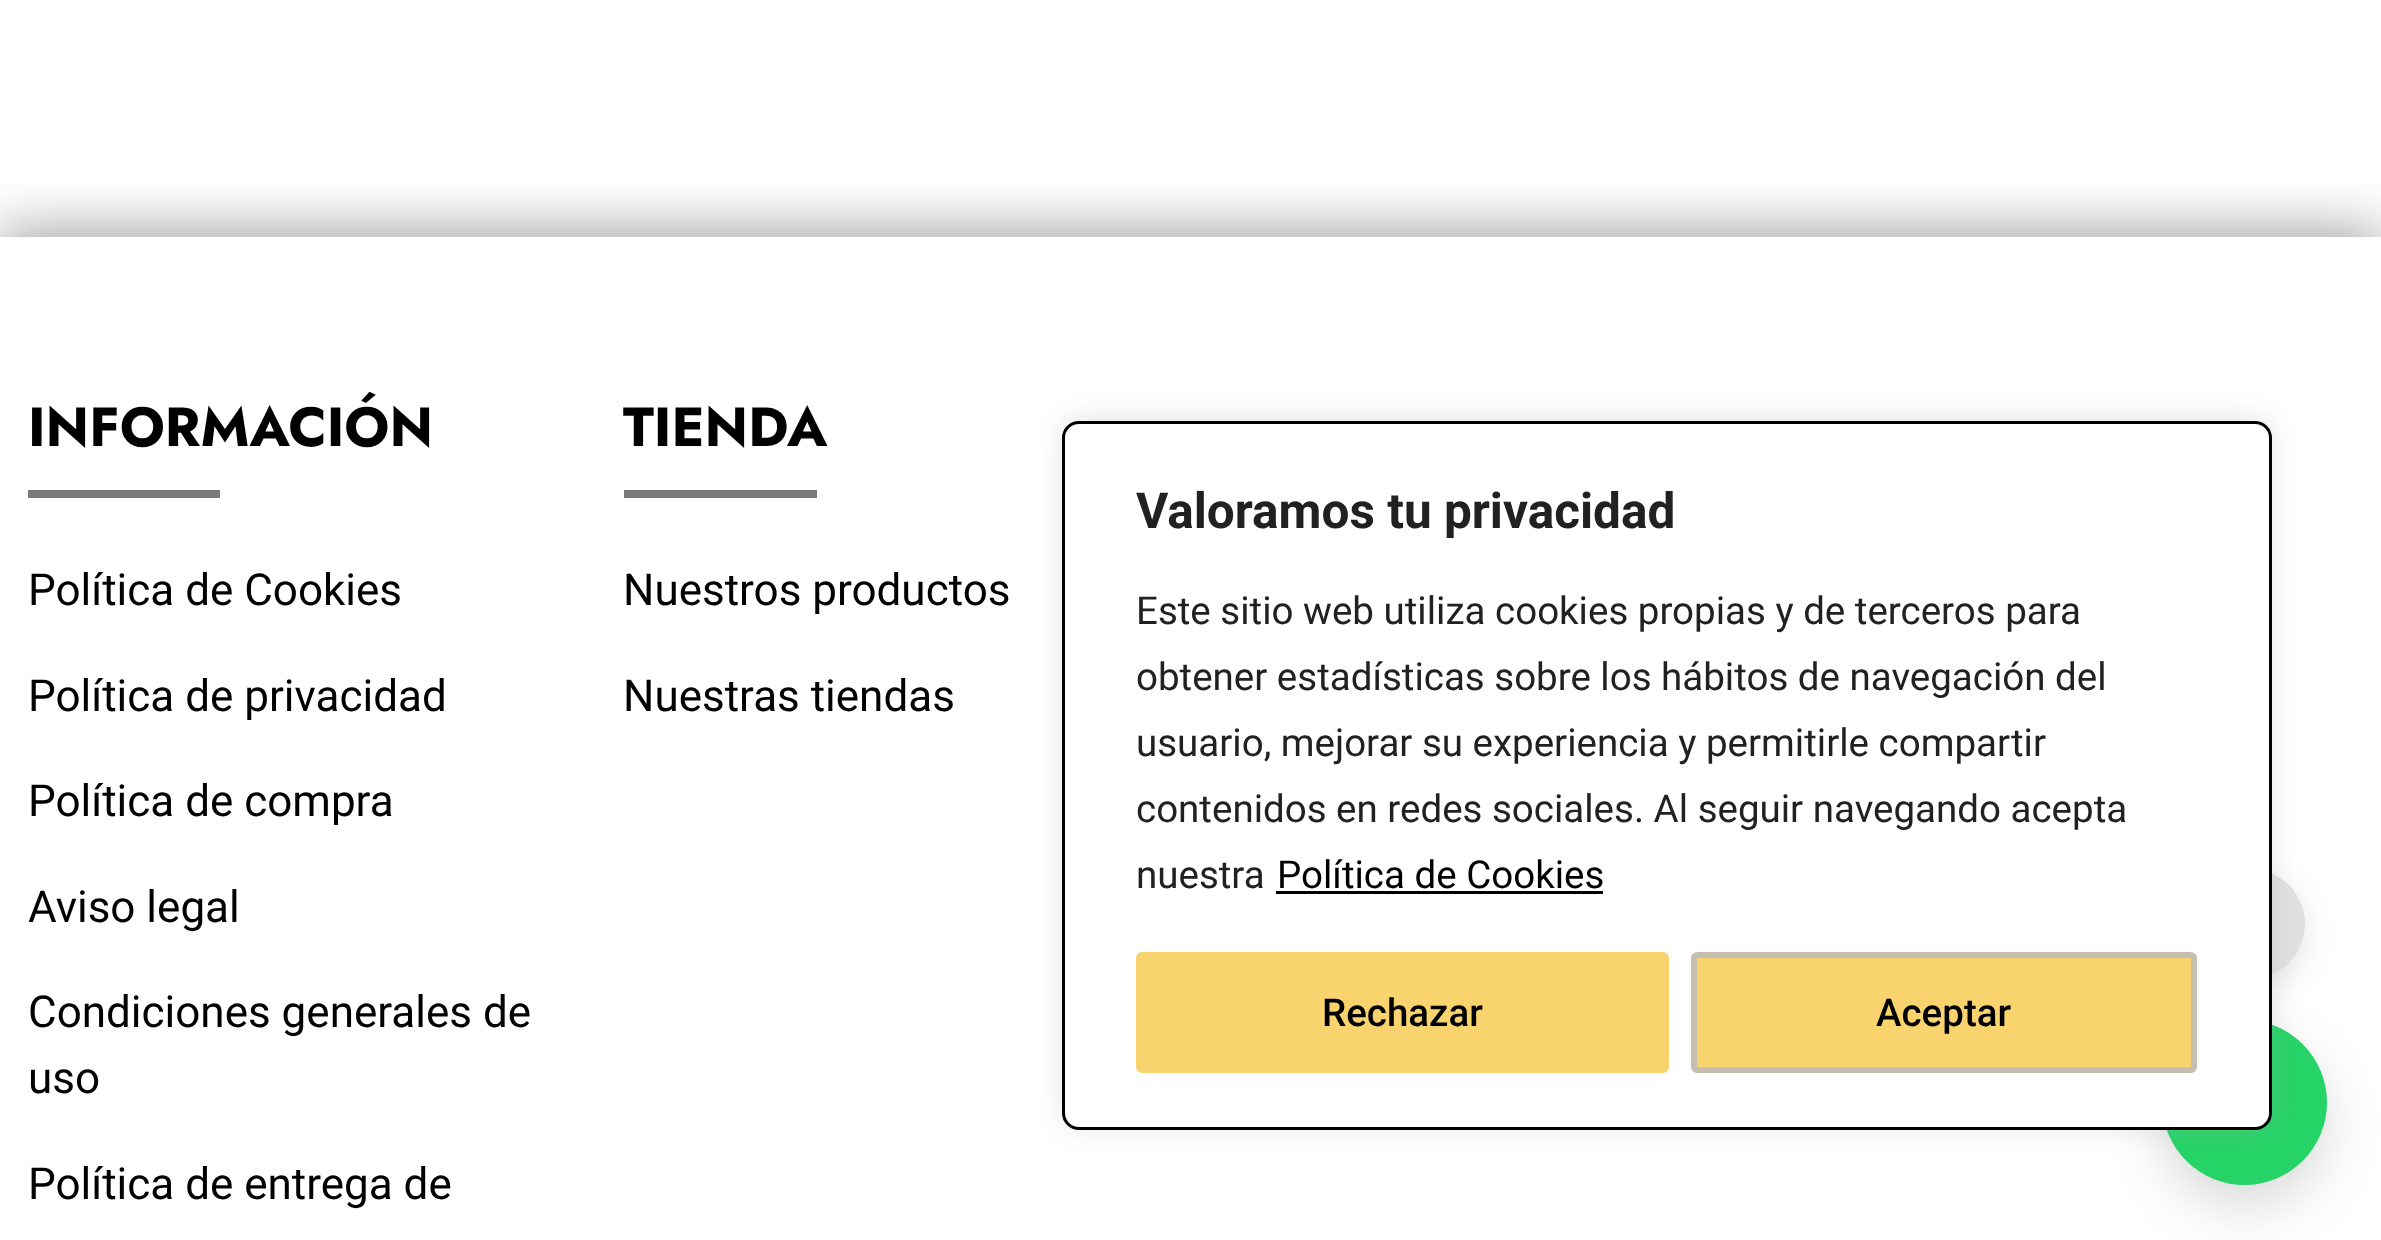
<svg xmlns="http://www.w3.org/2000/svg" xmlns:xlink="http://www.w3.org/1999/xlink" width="2381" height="1240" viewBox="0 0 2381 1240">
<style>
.cls-1{font:bold 55px Jost;fill:#000000}
.cls-2{font:44px Roboto;fill:#000000}
.cls-3{font:bold 49.5px Roboto;fill:#212121}
.cls-4{font:38.5px Roboto;fill:#212121}
.cls-5{font:38.5px Roboto;fill:#000000}
.cls-6{font:500 38.5px Roboto;fill:#000000}
</style>
<defs>
<clipPath id="clip1"><rect x="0" y="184" width="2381" height="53"/></clipPath>
</defs>
<rect width="100%" height="100%" fill="#ffffff"/>
<g clip-path="url(#clip1)">
<rect fill="#000000" fill-opacity="0.41" filter="blur(30px)" x="-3" y="234" width="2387" height="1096"/>
</g>
<rect fill="#7a7a7a" x="28" y="490" width="192" height="8"/>
<rect fill="#7a7a7a" x="624" y="490" width="193" height="8"/>
<rect fill="#000000" fill-opacity="0.15" filter="blur(27.5px)" x="2162" y="1042" width="165" height="165" rx="82.5"/>
<circle fill="#25d366" cx="2244.5" cy="1102.5" r="82.5"/>
<rect fill="#000000" fill-opacity="0.1" filter="blur(16.5px)" x="2195" y="880" width="110" height="110" rx="55"/>
<circle fill="#e0e0e0" cx="2250" cy="924" r="55"/>
<rect fill="#acabab" fill-opacity="0.3" filter="blur(14px)" x="1062" y="418" width="1210" height="710" rx="17"/>
<rect fill="#ffffff" stroke="#000000" stroke-width="3" x="1063.5" y="422.5" width="1207" height="706" rx="15.5"/>
<rect fill="#000000" x="1276" y="891" width="327" height="3"/>
<rect fill="#f9d36d" stroke="#f9d36d" stroke-width="6" x="1139" y="955" width="527" height="115" rx="3"/>
<rect fill="#f9d36d" stroke="#c5bfb1" stroke-width="6" x="1694" y="955" width="500" height="115" rx="3"/>
<text class="cls-1" x="28" y="446">INFORMACIÓN</text>
<text class="cls-2" x="28" y="605">Política de Cookies</text>
<text class="cls-2" x="28" y="711">Política de privacidad</text>
<text class="cls-2" x="28" y="816">Política de compra</text>
<text class="cls-2" x="28" y="922">Aviso legal</text>
<text class="cls-2"><tspan x="28" y="1027">Condiciones generales de</tspan><tspan x="28" y="1093">uso</tspan></text>
<text class="cls-2" x="28" y="1199">Política de entrega de</text>
<text class="cls-1" x="623" y="446">TIENDA</text>
<text class="cls-2" x="623" y="605">Nuestros productos</text>
<text class="cls-2" x="623" y="711">Nuestras tiendas</text>
<text class="cls-3" x="1136" y="528">Valoramos tu privacidad</text>
<text class="cls-4"><tspan x="1136" y="624">Este sitio web utiliza cookies propias y de terceros para</tspan><tspan x="1136" y="690">obtener estadísticas sobre los hábitos de navegación del</tspan><tspan x="1136" y="756">usuario, mejorar su experiencia y permitirle compartir</tspan><tspan x="1136" y="822">contenidos en redes sociales. Al seguir navegando acepta</tspan><tspan x="1136" y="888">nuestra</tspan></text>
<text class="cls-5" x="1277" y="888">Política de Cookies</text>
<text class="cls-6" x="1322" y="1026">Rechazar</text>
<text class="cls-6" x="1876" y="1026">Aceptar</text>
</svg>
